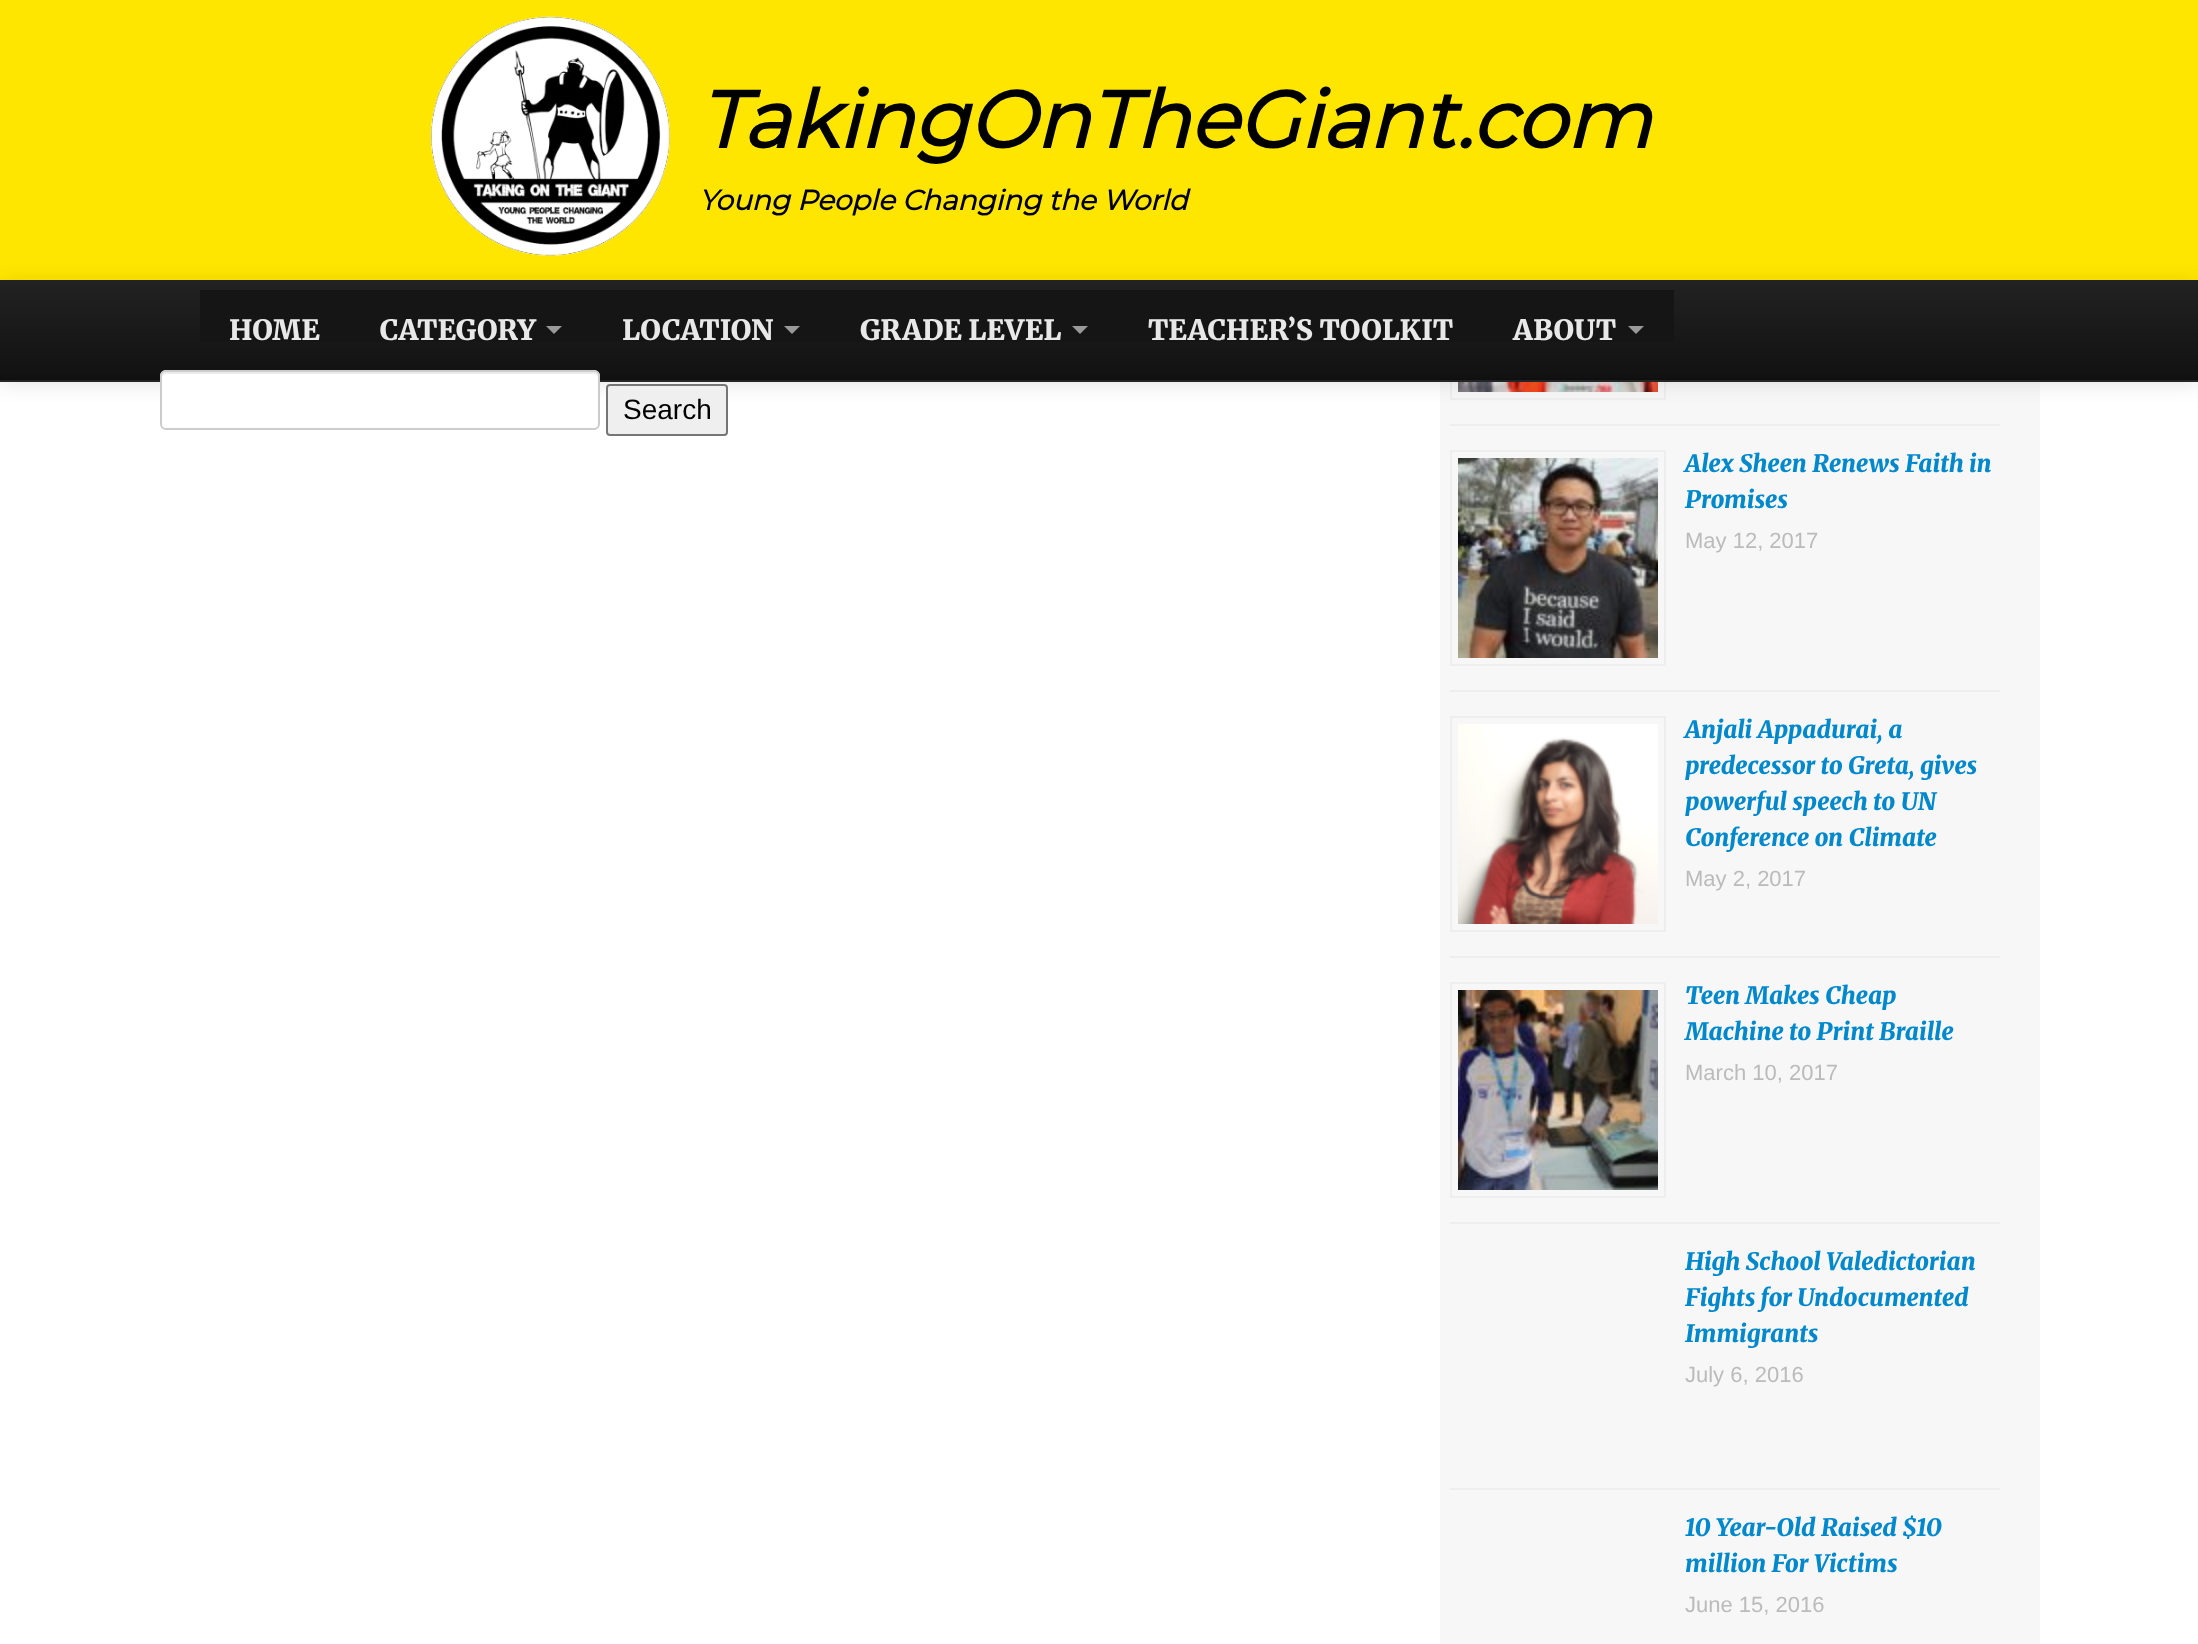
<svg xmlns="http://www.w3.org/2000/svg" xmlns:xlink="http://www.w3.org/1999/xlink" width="2198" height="1644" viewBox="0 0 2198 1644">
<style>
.cls-1{font:italic bold 80px Montserrat;fill:#000000}
.cls-2{font:italic bold 28px Montserrat;fill:#000000}
.cls-3{font:300 28px Merriweather;fill:#e8e8e8}
.cls-4{font:28px Liberation Sans;fill:#000000}
.cls-5{font:italic 300 24px Merriweather;fill:#0088cc}
.cls-6{font:22px Liberation Sans;fill:#bbbbbb}
</style>
<defs>
<linearGradient id="g1" gradientUnits="userSpaceOnUse" x1="1099" y1="280" x2="1099" y2="380"><stop offset="0" stop-color="#222222"/><stop offset="1" stop-color="#111111"/></linearGradient>
</defs>
<rect width="100%" height="100%" fill="#ffffff"/>
<rect fill="#f7f7f7" x="1440" y="382" width="600" height="1262"/>
<rect fill="none" stroke="#eeeeee" stroke-width="2" x="1451" y="185" width="214" height="214"/>
<rect fill="#ffe600" x="0" y="0" width="2198" height="280"/>
<image xlink:href="image1.png" x="1458" y="382" width="200" height="10"/>
<rect fill="#000000" fill-opacity="0.1" filter="blur(10px)" x="0" y="282" width="2198" height="102"/>
<image xlink:href="image0.png" x="430" y="16" width="241" height="240"/>
<rect fill="url(#g1)" x="0" y="280" width="2198" height="98"/>
<rect fill="#0f0f0f" x="0" y="378" width="2198" height="2"/>
<rect fill="#252525" x="0" y="380" width="2198" height="2"/>
<rect fill="#151515" x="200" y="290" width="630" height="52"/>
<path fill="#999999" d="M546 326H562L554 334Z"/>
<path fill="#999999" d="M784 326H800L792 334Z"/>
<rect fill="#151515" x="830" y="290" width="844" height="52"/>
<path fill="#999999" d="M1072 326H1088L1080 334Z"/>
<path fill="#999999" d="M1628 326H1644L1636 334Z"/>
<rect fill="#ffffff" x="160" y="370" width="440" height="60" rx="6"/>
<path fill="#ececec" d="M166 374H594C596 374 598 376 598 378V376C598 374 596 372 594 372H166C164 372 162 374 162 376V378C162 376 164 374 166 374Z"/>
<rect fill="none" stroke="#cccccc" stroke-width="2" x="161" y="371" width="438" height="58" rx="5"/>
<rect fill="#efefef" stroke="#767676" stroke-width="2" x="607" y="385" width="120" height="50" rx="3"/>
<rect fill="#eeeeee" x="1450" y="424" width="550" height="2"/>
<rect fill="#eeeeee" x="1450" y="690" width="550" height="2"/>
<rect fill="none" stroke="#eeeeee" stroke-width="2" x="1451" y="451" width="214" height="214"/>
<image xlink:href="image2.png" x="1458" y="458" width="200" height="200"/>
<rect fill="#eeeeee" x="1450" y="956" width="550" height="2"/>
<rect fill="none" stroke="#eeeeee" stroke-width="2" x="1451" y="717" width="214" height="214"/>
<image xlink:href="image3.png" x="1458" y="724" width="200" height="200"/>
<rect fill="#eeeeee" x="1450" y="1222" width="550" height="2"/>
<rect fill="none" stroke="#eeeeee" stroke-width="2" x="1451" y="983" width="214" height="214"/>
<image xlink:href="image4.png" x="1458" y="990" width="200" height="200"/>
<rect fill="#eeeeee" x="1450" y="1488" width="550" height="2"/>
<text class="cls-1" x="699" y="148">TakingOnTheGiant.com</text>
<text class="cls-2" x="699" y="210">Young People Changing the World</text>
<text class="cls-3" x="229" y="340">HOME</text>
<text class="cls-3" x="380" y="340">CATEGORY</text>
<text class="cls-3" x="622" y="340">LOCATION</text>
<text class="cls-3" x="860" y="340">GRADE LEVEL</text>
<text class="cls-3" x="1148" y="340">TEACHER’S TOOLKIT</text>
<text class="cls-3" x="1513" y="340">ABOUT</text>
<text class="cls-4" x="623" y="419">Search</text>
<text class="cls-5"><tspan x="1685" y="472">Alex Sheen Renews Faith in</tspan><tspan x="1685" y="508">Promises</tspan></text>
<text class="cls-6" x="1685" y="548">May 12, 2017</text>
<text class="cls-5"><tspan x="1685" y="738">Anjali Appadurai, a</tspan><tspan x="1685" y="774">predecessor to Greta, gives</tspan><tspan x="1685" y="810">powerful speech to UN</tspan><tspan x="1685" y="846">Conference on Climate</tspan></text>
<text class="cls-6" x="1685" y="886">May 2, 2017</text>
<text class="cls-5"><tspan x="1685" y="1004">Teen Makes Cheap</tspan><tspan x="1685" y="1040">Machine to Print Braille</tspan></text>
<text class="cls-6" x="1685" y="1080">March 10, 2017</text>
<text class="cls-5"><tspan x="1685" y="1270">High School Valedictorian</tspan><tspan x="1685" y="1306">Fights for Undocumented</tspan><tspan x="1685" y="1342">Immigrants</tspan></text>
<text class="cls-6" x="1685" y="1382">July 6, 2016</text>
<text class="cls-5"><tspan x="1685" y="1536">10 Year-Old Raised $10</tspan><tspan x="1685" y="1572">million For Victims</tspan></text>
<text class="cls-6" x="1685" y="1612">June 15, 2016</text>
</svg>
